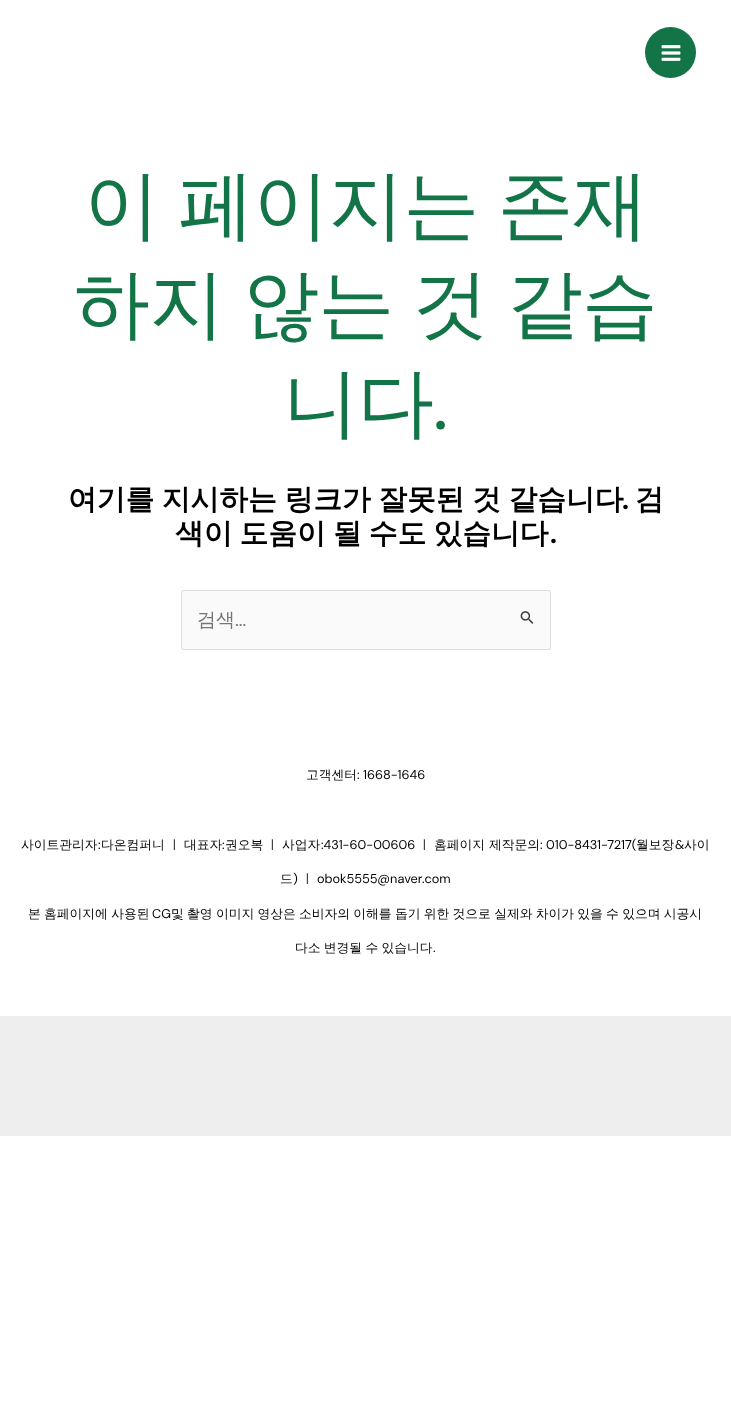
<svg xmlns="http://www.w3.org/2000/svg" xmlns:xlink="http://www.w3.org/1999/xlink" width="731" height="1425" viewBox="0 0 731 1425">
<style>
.cls-1{font:500 76px WenQuanYi Zen Hei;letter-spacing:-1px;fill:#137547}
.cls-2{font:76px DM Sans;letter-spacing:-1px;fill:#137547}
.cls-3{font:bold 28.75px WenQuanYi Zen Hei;fill:#000000}
.cls-4{font:bold 28.75px DM Sans;fill:#000000}
.cls-5{font:500 19px WenQuanYi Zen Hei;fill:#757575}
.cls-6{font:19px DM Sans;fill:#757575}
.cls-7{font:500 12.75px WenQuanYi Zen Hei;fill:#000000}
.cls-8{font:12.75px DM Sans;fill:#000000}
</style>
<rect width="100%" height="100%" fill="#ffffff"/>
<circle fill="#137547" cx="670.5" cy="52.5" r="25.5"/>
<image xlink:href="image0.png" x="661" y="45" width="20" height="16"/>
<rect fill="#fafafa" stroke="#dddddd" x="181.5" y="590.5" width="369" height="59" rx="1.5"/>
<image xlink:href="image1.png" x="520" y="611" width="14" height="13"/>
<rect fill="#eeeeee" x="0" y="1016" width="731" height="120"/>
<text class="cls-1" x="84" y="231" word-spacing="-2.5">이 페이지는 존재</text>
<text class="cls-1" x="74" y="330" word-spacing="-2.5">하지 않는 것 같습</text>
<text class="cls-1" x="283" y="429">니다</text>
<text class="cls-2" x="433" y="429">.</text>
<text class="cls-3" x="68" y="509" word-spacing="-1">여기를 지시하는 링크가 잘못된 것 같습니다</text>
<text class="cls-4" x="622" y="509">.</text>
<text class="cls-3" x="635" y="509">검</text>
<text class="cls-3" x="175" y="543" word-spacing="-1.5">색이 도움이 될 수도 있습니다</text>
<text class="cls-4" x="550" y="543">.</text>
<text class="cls-5" x="197" y="626">검색</text>
<text class="cls-6" x="235" y="626">...</text>
<text class="cls-7" x="306" y="779">고객센터</text>
<text class="cls-8" x="357" y="779">: 1668-1646</text>
<text class="cls-7" x="21" y="849">사이트관리자</text>
<text class="cls-8" x="98" y="849">:</text>
<text class="cls-7" x="101" y="849">다온컴퍼니</text>
<text class="cls-7" x="168" y="849">ㅣ</text>
<text class="cls-7" x="184" y="849">대표자</text>
<text class="cls-8" x="222" y="849">:</text>
<text class="cls-7" x="225" y="849">권오복</text>
<text class="cls-7" x="266" y="849">ㅣ</text>
<text class="cls-7" x="282" y="849">사업자</text>
<text class="cls-8" x="321" y="849">:431-60-00606</text>
<text class="cls-7" x="418" y="849">ㅣ</text>
<text class="cls-7" x="434" y="849">홈페이지</text>
<text class="cls-7" x="489" y="849">제작문의</text>
<text class="cls-8" x="540" y="849">: 010-8431-7217(</text>
<text class="cls-7" x="636" y="849">월보장</text>
<text class="cls-8" x="675" y="849">&amp;</text>
<text class="cls-7" x="684" y="849">사이</text>
<text class="cls-7" x="280" y="883">드</text>
<text class="cls-8" x="293" y="883">)</text>
<text class="cls-7" x="301" y="883">ㅣ</text>
<text class="cls-8" x="317" y="883">obok5555@naver.com</text>
<text class="cls-7" x="28" y="918" word-spacing="-0.5">본 홈페이지에 사용된</text>
<text class="cls-8" x="152" y="918">CG</text>
<text class="cls-7" x="171" y="918" word-spacing="-0.5">및 촬영 이미지 영상은 소비자의 이해를 돕기 위한 것으로 실제와 차이가 있을 수 있으며 시공시</text>
<text class="cls-7" x="295" y="952" word-spacing="-0.5">다소 변경될 수 있습니다</text>
<text class="cls-8" x="433" y="952">.</text>
</svg>
